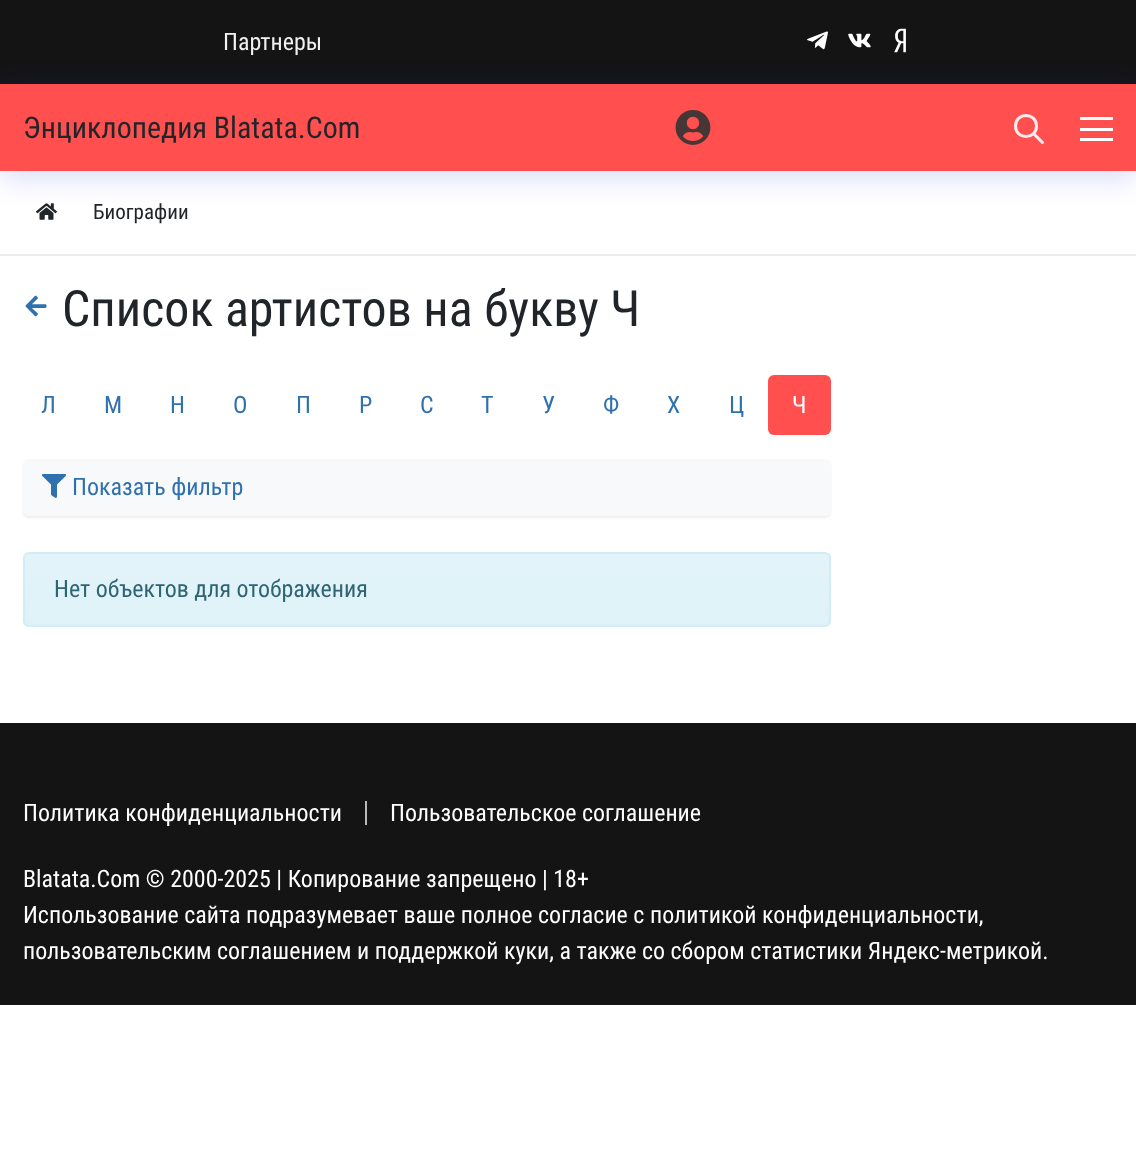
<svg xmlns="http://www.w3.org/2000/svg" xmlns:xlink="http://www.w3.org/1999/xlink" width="1136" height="1166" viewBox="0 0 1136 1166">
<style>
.cls-1{font:24px Roboto Condensed;fill:#f0f0f0}
.cls-2{font:30px Roboto Condensed;fill:#212529}
.cls-3{font:21px Roboto Condensed;fill:#212529}
.cls-4{font:50px Roboto Condensed;fill:#212529}
.cls-5{font:24px Roboto Condensed;fill:#2f70af}
.cls-6{font:24px Roboto Condensed;fill:#ffffff}
.cls-7{font:24px Roboto Condensed;fill:#2f6473}
</style>
<defs>
<clipPath id="clip1"><rect x="23" y="552" width="808" height="75" rx="6"/></clipPath>
<linearGradient id="g1" gradientUnits="userSpaceOnUse" x1="427" y1="553" x2="427" y2="626"><stop offset="0" stop-color="#e3f4f9"/><stop offset="1" stop-color="#def2f8"/></linearGradient>
</defs>
<rect width="100%" height="100%" fill="#ffffff"/>
<rect fill="#141414" x="0" y="0" width="1136" height="84"/>
<image xlink:href="image0.png" x="807" y="31" width="21" height="19"/>
<image xlink:href="image1.png" x="848" y="33" width="23" height="15"/>
<image xlink:href="image2.png" x="894" y="28" width="12" height="25"/>
<image xlink:href="image4.png" x="36" y="203" width="21" height="17"/>
<rect fill="#2e38dc" fill-opacity="0.2" filter="blur(15px)" x="0" y="89" width="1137" height="87"/>
<rect fill="#ff4f4f" x="0" y="84" width="1136" height="87"/>
<image xlink:href="image3.png" x="675" y="110" width="36" height="35"/>
<path fill="none" stroke="#ffeded" stroke-width="3" stroke-linecap="round" stroke-linejoin="round" d="M1042.5 142.5L1033.5 133.5M1036.5 126C1036.5 140 1015.5 140 1015.5 126C1015.5 112 1036.5 112 1036.5 126Z"/>
<rect fill="#ffffff" x="1080" y="128" width="33" height="3"/>
<rect fill="#ffffff" x="1080" y="117" width="33" height="3"/>
<rect fill="#ffffff" x="1080" y="138" width="33" height="3"/>
<rect fill="#ededed" x="0" y="254" width="1136" height="2"/>
<image xlink:href="image5.png" x="25" y="295" width="22" height="22"/>
<rect fill="#ff4f4f" x="768" y="375" width="63" height="60" rx="6"/>
<rect fill="#000000" fill-opacity="0.07" filter="blur(1px)" x="23" y="461" width="808" height="57" rx="6"/>
<rect fill="#f8f9fa" stroke="#f8f9fa" stroke-width="2" x="24" y="460" width="806" height="55" rx="5"/>
<image xlink:href="image6.png" x="42" y="474" width="24" height="24"/>
<g clip-path="url(#clip1)">
<rect fill="url(#g1)" x="23" y="554" width="808" height="72"/>
</g>
<rect fill="none" stroke="#d1edf6" stroke-width="2" x="24" y="553" width="806" height="73" rx="5"/>
<rect fill="#141414" x="0" y="723" width="1136" height="282"/>
<rect fill="#b9b9b9" x="365" y="801" width="2" height="24"/>
<text class="cls-1" x="223" y="50">Партнеры</text>
<text class="cls-2" x="23" y="138">Энциклопедия Blatata.Com</text>
<text class="cls-3" x="93" y="219">Биографии</text>
<text class="cls-4" x="62" y="326">Список артистов на букву Ч</text>
<text class="cls-5" x="41" y="413">Л</text>
<text class="cls-5" x="104" y="413">М</text>
<text class="cls-5" x="170" y="413">Н</text>
<text class="cls-5" x="233" y="413">О</text>
<text class="cls-5" x="296" y="413">П</text>
<text class="cls-5" x="359" y="413">Р</text>
<text class="cls-5" x="420" y="413">С</text>
<text class="cls-5" x="481" y="413">Т</text>
<text class="cls-5" x="542" y="413">У</text>
<text class="cls-5" x="603" y="413">Ф</text>
<text class="cls-5" x="667" y="413">Х</text>
<text class="cls-5" x="729" y="413">Ц</text>
<text class="cls-6" x="792" y="413">Ч</text>
<text class="cls-5" x="72" y="495">Показать фильтр</text>
<text class="cls-7" x="54" y="597">Нет объектов для отображения</text>
<text class="cls-6" x="23" y="821">Политика конфиденциальности</text>
<text class="cls-6" x="390" y="821">Пользовательское соглашение</text>
<text class="cls-6"><tspan x="23" y="887">Blatata.Com © 2000-2025 | Копирование запрещено | 18+</tspan><tspan x="23" y="923">Использование сайта подразумевает ваше полное согласие с политикой конфиденциальности,</tspan><tspan x="23" y="959">пользовательским соглашением и поддержкой куки, а также со сбором статистики Яндекс-метрикой.</tspan></text>
</svg>
